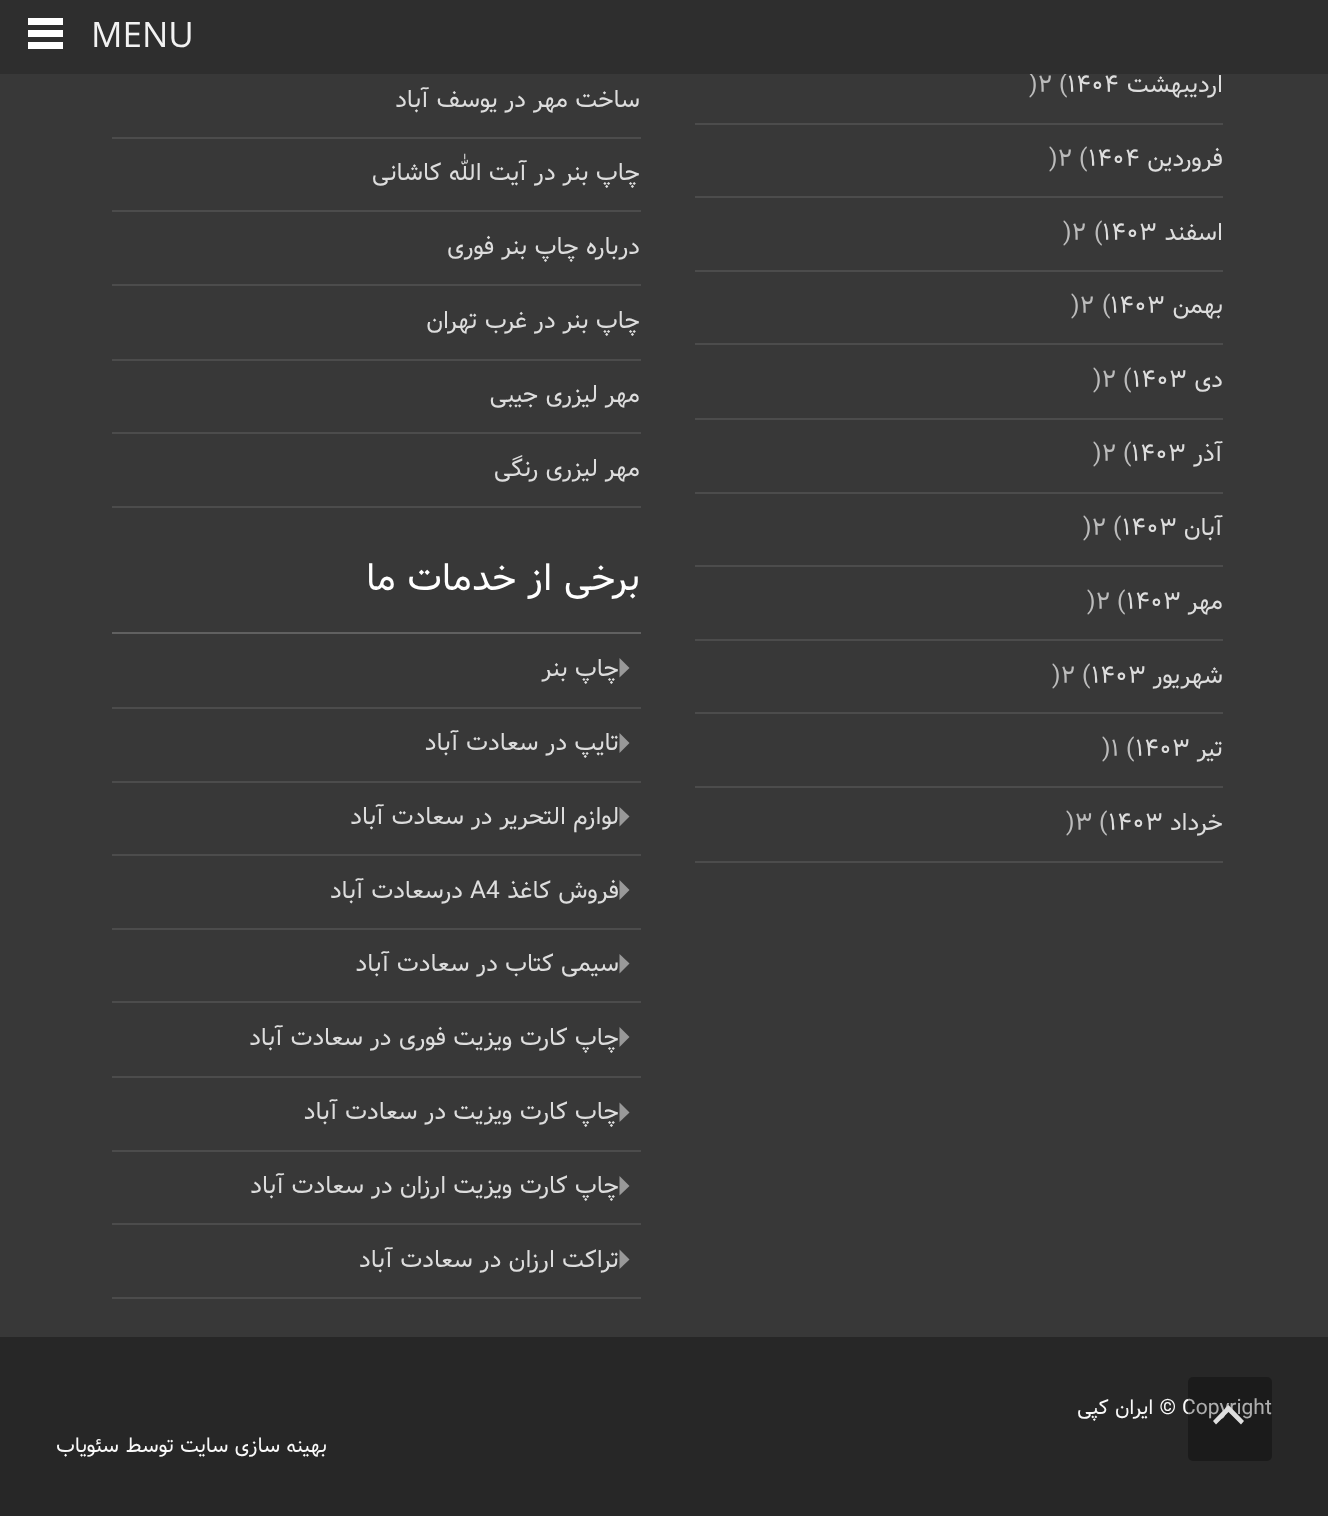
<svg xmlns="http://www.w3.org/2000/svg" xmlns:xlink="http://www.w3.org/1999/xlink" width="1328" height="1516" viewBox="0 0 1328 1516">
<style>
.cls-1{font:24.5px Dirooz;direction:rtl;fill:#dddddd}
.cls-2{font:24.5px Dirooz;fill:#dddddd}
.cls-3{font:24.5px Dirooz;fill:#bbbbbb}
.cls-4{font:35px Open Sans;fill:#f2f2f2}
.cls-5{font:38.5px Dirooz;direction:rtl;fill:#ffffff}
.cls-6{font:21px Dirooz;fill:#f9f9f9}
.cls-7{font:21px Dirooz;direction:rtl;fill:#f9f9f9}
</style>
<rect width="100%" height="100%" fill="#272727"/>
<rect fill="#383838" x="0" y="74" width="1328" height="1263"/>
<rect fill="#4c4c4c" x="695" y="123" width="528" height="2"/>
<rect fill="#4c4c4c" x="695" y="196" width="528" height="2"/>
<rect fill="#4c4c4c" x="695" y="270" width="528" height="2"/>
<rect fill="#4c4c4c" x="695" y="343" width="528" height="2"/>
<rect fill="#4c4c4c" x="695" y="418" width="528" height="2"/>
<rect fill="#4c4c4c" x="695" y="492" width="528" height="2"/>
<rect fill="#4c4c4c" x="695" y="565" width="528" height="2"/>
<rect fill="#4c4c4c" x="695" y="639" width="528" height="2"/>
<rect fill="#4c4c4c" x="695" y="712" width="528" height="2"/>
<rect fill="#4c4c4c" x="695" y="786" width="528" height="2"/>
<rect fill="#4c4c4c" x="695" y="861" width="528" height="2"/>
<rect fill="#4c4c4c" x="112" y="137" width="529" height="2"/>
<rect fill="#4c4c4c" x="112" y="210" width="529" height="2"/>
<rect fill="#4c4c4c" x="112" y="284" width="529" height="2"/>
<rect fill="#4c4c4c" x="112" y="359" width="529" height="2"/>
<rect fill="#4c4c4c" x="112" y="432" width="529" height="2"/>
<rect fill="#4c4c4c" x="112" y="506" width="529" height="2"/>
<rect fill="#606060" x="112" y="632" width="529" height="2"/>
<rect fill="#4c4c4c" x="112" y="707" width="529" height="2"/>
<path fill="#999999" d="M619.5 677.5L629.5 668L619.5 658Z"/>
<rect fill="#4c4c4c" x="112" y="781" width="529" height="2"/>
<path fill="#999999" d="M619.5 753L629.5 743L619.5 733Z"/>
<rect fill="#4c4c4c" x="112" y="854" width="529" height="2"/>
<path fill="#999999" d="M619.5 826.5L629.5 816.5L619.5 807Z"/>
<rect fill="#4c4c4c" x="112" y="928" width="529" height="2"/>
<path fill="#999999" d="M619.5 900L629.5 890L619.5 880Z"/>
<rect fill="#4c4c4c" x="112" y="1001" width="529" height="2"/>
<path fill="#999999" d="M619.5 973.5L629.5 963.5L619.5 954Z"/>
<rect fill="#4c4c4c" x="112" y="1076" width="529" height="2"/>
<path fill="#999999" d="M619.5 1047L629.5 1037L619.5 1027Z"/>
<rect fill="#4c4c4c" x="112" y="1150" width="529" height="2"/>
<path fill="#999999" d="M619.5 1122L629.5 1112.5L619.5 1102.5Z"/>
<rect fill="#4c4c4c" x="112" y="1223" width="529" height="2"/>
<path fill="#999999" d="M619.5 1195.5L629.5 1186L619.5 1176Z"/>
<rect fill="#4c4c4c" x="112" y="1297" width="529" height="2"/>
<path fill="#999999" d="M619.5 1269L629.5 1259.5L619.5 1249.5Z"/>
<text class="cls-1" x="1223" y="92">اردیبهشت</text>
<text class="cls-2" x="1067" y="92">۱۴۰۴</text>
<text class="cls-3" x="1059" y="92">(</text>
<text class="cls-3" x="1029" y="92">)۲</text>
<rect fill="#2e2e2e" x="0" y="0" width="1328" height="74"/>
<rect fill="#ffffff" x="28" y="42" width="35" height="7"/>
<rect fill="#ffffff" x="28" y="30" width="35" height="7"/>
<rect fill="#ffffff" x="28" y="18" width="35" height="7"/>
<text class="cls-4" x="91" y="47">MENU</text>
<text class="cls-1" x="1223" y="166">فروردین</text>
<text class="cls-2" x="1088" y="166">۱۴۰۴</text>
<text class="cls-3" x="1079" y="166">(</text>
<text class="cls-3" x="1049" y="166">)۲</text>
<text class="cls-1" x="1223" y="240">اسفند</text>
<text class="cls-2" x="1102" y="240">۱۴۰۳</text>
<text class="cls-3" x="1094" y="240">(</text>
<text class="cls-3" x="1063" y="240">)۲</text>
<text class="cls-1" x="1223" y="313">بهمن</text>
<text class="cls-2" x="1110" y="313">۱۴۰۳</text>
<text class="cls-3" x="1102" y="313">(</text>
<text class="cls-3" x="1071" y="313">)۲</text>
<text class="cls-1" x="1223" y="387">دی</text>
<text class="cls-2" x="1132" y="387">۱۴۰۳</text>
<text class="cls-3" x="1123" y="387">(</text>
<text class="cls-3" x="1093" y="387">)۲</text>
<text class="cls-1" x="1223" y="461">آذر</text>
<text class="cls-2" x="1131" y="461">۱۴۰۳</text>
<text class="cls-3" x="1123" y="461">(</text>
<text class="cls-3" x="1093" y="461">)۲</text>
<text class="cls-1" x="1223" y="535">آبان</text>
<text class="cls-2" x="1122" y="535">۱۴۰۳</text>
<text class="cls-3" x="1113" y="535">(</text>
<text class="cls-3" x="1083" y="535">)۲</text>
<text class="cls-1" x="1223" y="609">مهر</text>
<text class="cls-2" x="1126" y="609">۱۴۰۳</text>
<text class="cls-3" x="1117" y="609">(</text>
<text class="cls-3" x="1087" y="609">)۲</text>
<text class="cls-1" x="1223" y="683">شهریور</text>
<text class="cls-2" x="1091" y="683">۱۴۰۳</text>
<text class="cls-3" x="1082" y="683">(</text>
<text class="cls-3" x="1052" y="683">)۲</text>
<text class="cls-1" x="1223" y="756">تیر</text>
<text class="cls-2" x="1135" y="756">۱۴۰۳</text>
<text class="cls-3" x="1126" y="756">(</text>
<text class="cls-3" x="1102" y="756">)۱</text>
<text class="cls-1" x="1223" y="830">خرداد</text>
<text class="cls-2" x="1108" y="830">۱۴۰۳</text>
<text class="cls-3" x="1099" y="830">(</text>
<text class="cls-3" x="1066" y="830">)۳</text>
<text class="cls-1" x="640" y="107">ساخت مهر در یوسف آباد</text>
<text class="cls-1" x="640" y="180">چاپ بنر در آیت الله کاشانی</text>
<text class="cls-1" x="640" y="254">درباره چاپ بنر فوری</text>
<text class="cls-1" x="640" y="328">چاپ بنر در غرب تهران</text>
<text class="cls-1" x="640" y="402">مهر لیزری جیبی</text>
<text class="cls-1" x="640" y="476">مهر لیزری رنگی</text>
<text class="cls-5" x="640" y="590">برخی از خدمات ما</text>
<text class="cls-1" x="619" y="676">چاپ بنر</text>
<text class="cls-1" x="619" y="750">تایپ در سعادت آباد</text>
<text class="cls-1" x="619" y="824">لوازم التحریر در سعادت آباد</text>
<text class="cls-1" x="619" y="898">فروش کاغذ</text>
<text class="cls-2" x="470" y="898">A4</text>
<text class="cls-1" x="463" y="898">درسعادت آباد</text>
<text class="cls-1" x="619" y="971">سیمی کتاب در سعادت آباد</text>
<text class="cls-1" x="619" y="1045">چاپ کارت ویزیت فوری در سعادت آباد</text>
<text class="cls-1" x="619" y="1119">چاپ کارت ویزیت در سعادت آباد</text>
<text class="cls-1" x="619" y="1193">چاپ کارت ویزیت ارزان در سعادت آباد</text>
<text class="cls-1" x="619" y="1267">تراکت ارزان در سعادت آباد</text>
<text class="cls-6" x="1182" y="1414">Copyright</text>
<text class="cls-7" x="1176" y="1414">© ایران کپی</text>
<text class="cls-7" x="327" y="1452">بهینه سازی سایت</text>
<text class="cls-7" x="174" y="1452">توسط</text>
<text class="cls-7" x="119" y="1452">سئو</text>
<text class="cls-7" x="87" y="1452">یاب</text>
<rect fill="#000000" fill-opacity="0.3" x="1188" y="1377" width="84" height="84" rx="5"/>
<path fill="#dfdfdf" d="M1213 1421L1228.5 1405L1244 1421L1241 1424.5L1228.5 1412L1216 1424.5Z"/>
</svg>
